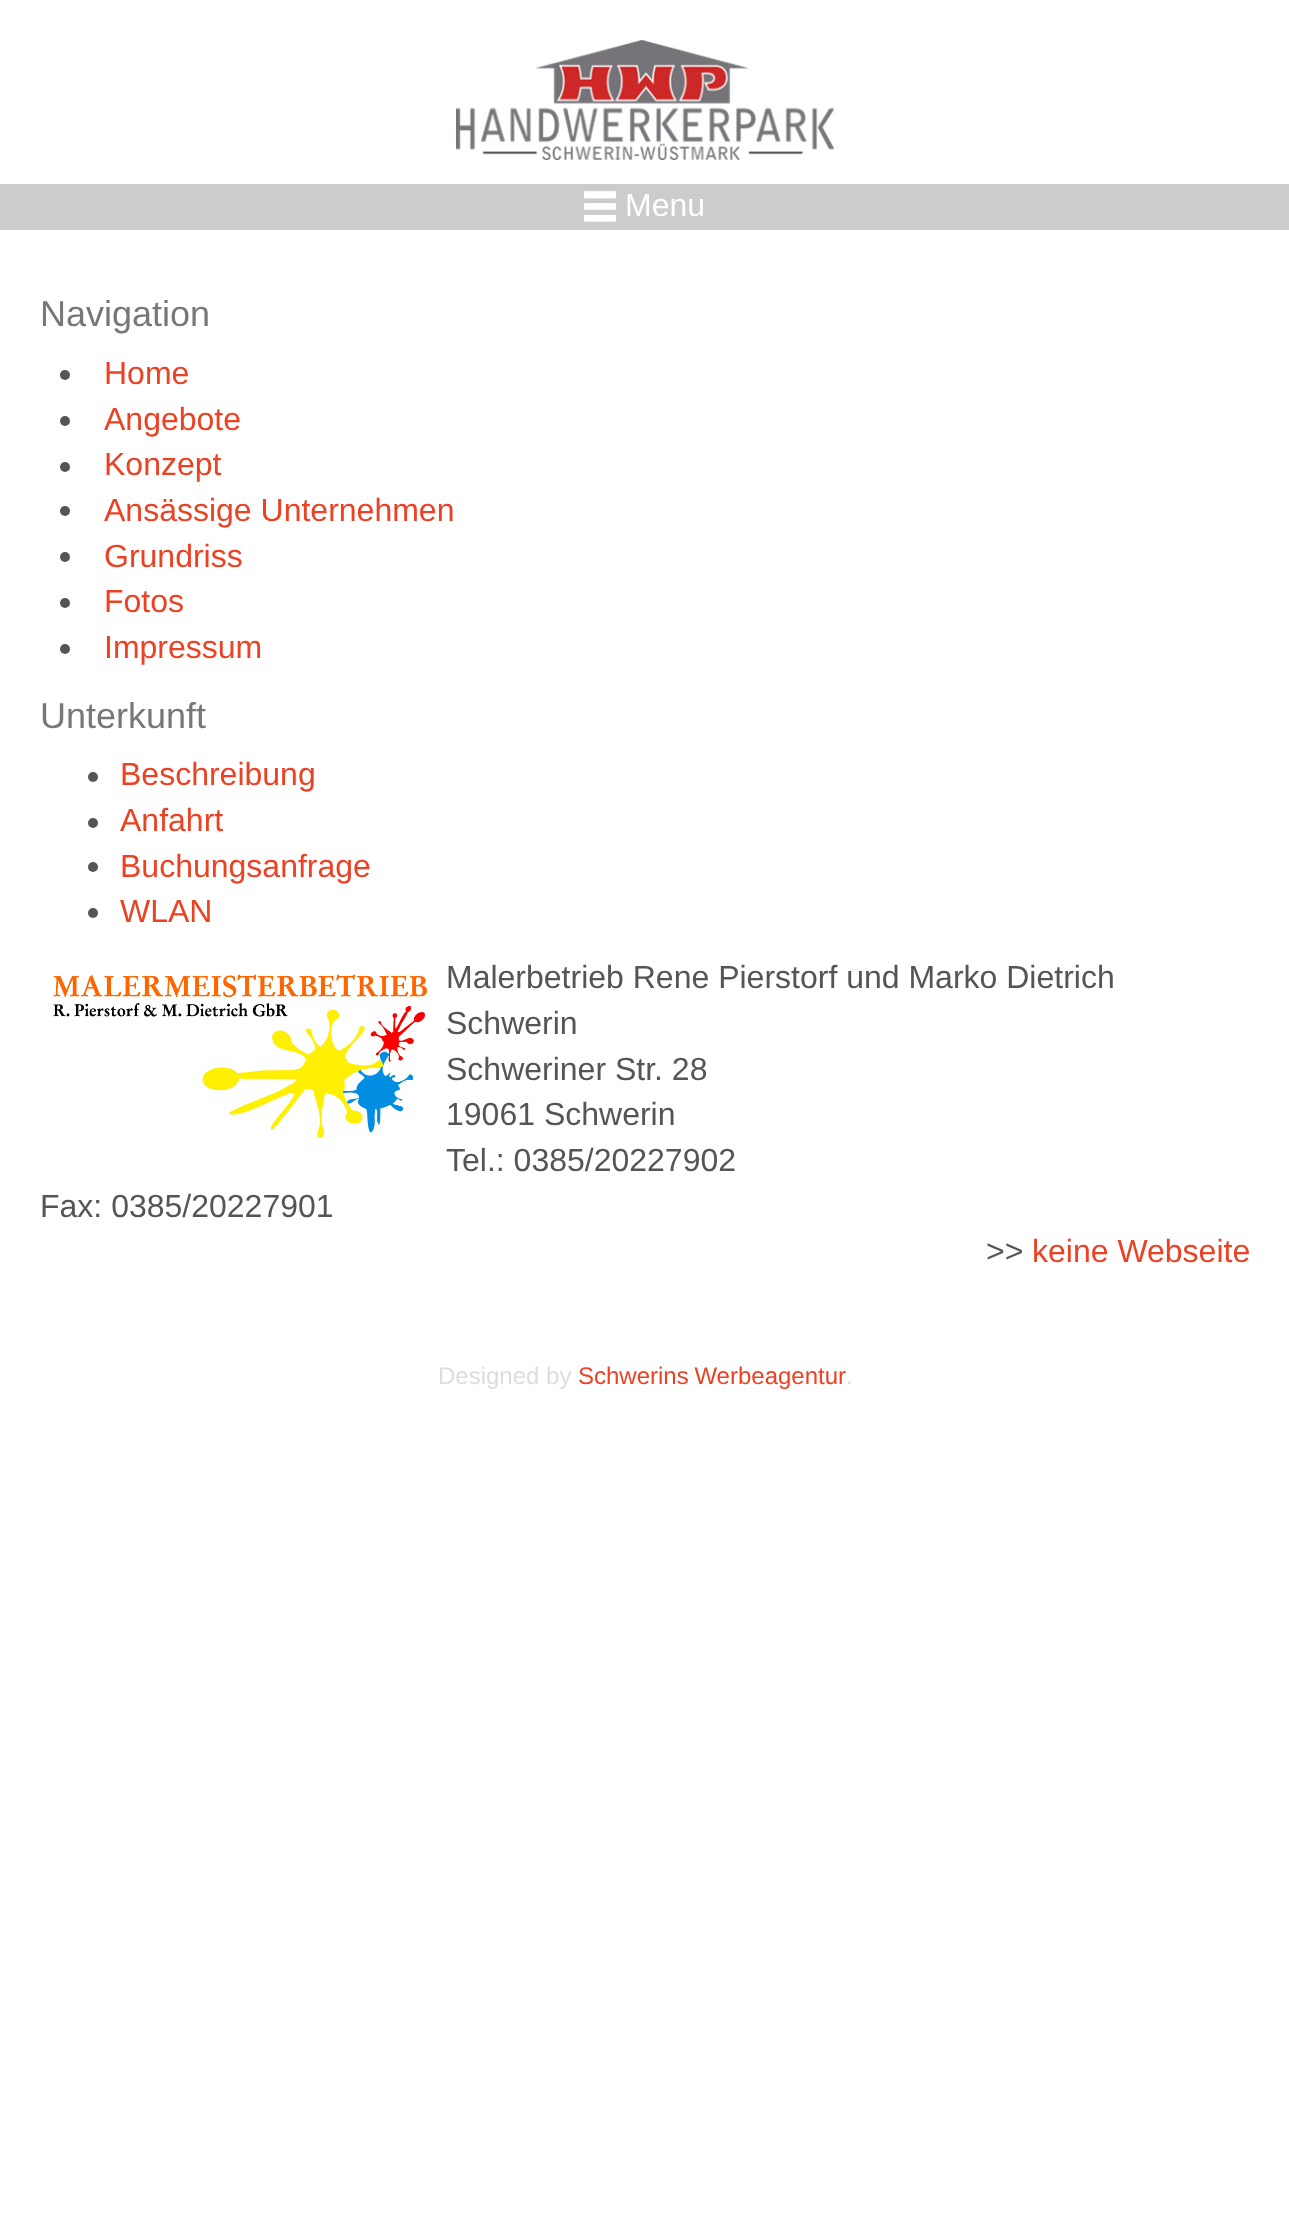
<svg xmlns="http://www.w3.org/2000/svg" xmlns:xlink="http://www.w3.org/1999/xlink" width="1289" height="2223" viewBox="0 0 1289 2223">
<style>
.cls-1{font:32px Liberation Sans;fill:#ffffff}
.cls-2{font:36px Liberation Sans;fill:#777777}
.cls-3{font:32px Liberation Sans;fill:#eb4224}
.cls-4{font:32px Liberation Sans;fill:#555555}
.cls-5{font:24px Liberation Sans;fill:#dddddd}
.cls-6{font:24px Liberation Sans;fill:#eb4224}
</style>
<rect width="100%" height="100%" fill="#ffffff"/>
<image xlink:href="image0.png" x="456" y="40" width="378" height="120"/>
<rect fill="#cccccc" x="0" y="184" width="1289" height="46"/>
<image xlink:href="image1.png" x="584" y="191" width="32" height="31"/>
<circle fill="#555555" cx="65" cy="375" r="5"/>
<circle fill="#555555" cx="65" cy="421" r="5"/>
<circle fill="#555555" cx="65" cy="467" r="5"/>
<circle fill="#555555" cx="65" cy="511" r="5"/>
<circle fill="#555555" cx="65" cy="557" r="5"/>
<circle fill="#555555" cx="65" cy="603" r="5"/>
<circle fill="#555555" cx="65" cy="649" r="5"/>
<circle fill="#555555" cx="93" cy="777" r="5"/>
<circle fill="#555555" cx="93" cy="823" r="5"/>
<circle fill="#555555" cx="93" cy="867" r="5"/>
<circle fill="#555555" cx="93" cy="913" r="5"/>
<image xlink:href="image2.png" x="53" y="974" width="374" height="164"/>
<text class="cls-1" x="625" y="216">Menu</text>
<text class="cls-2" x="40" y="326">Navigation</text>
<text class="cls-3"><tspan x="104" y="384">Home</tspan><tspan x="104" y="430">Angebote</tspan><tspan x="104" y="475">Konzept</tspan><tspan x="104" y="521">Ansässige Unternehmen</tspan><tspan x="104" y="567">Grundriss</tspan><tspan x="104" y="612">Fotos</tspan><tspan x="104" y="658">Impressum</tspan></text>
<text class="cls-2" x="40" y="728">Unterkunft</text>
<text class="cls-3"><tspan x="120" y="785">Beschreibung</tspan><tspan x="120" y="831">Anfahrt</tspan><tspan x="120" y="877">Buchungsanfrage</tspan><tspan x="120" y="922">WLAN</tspan></text>
<text class="cls-4"><tspan x="446" y="988">Malerbetrieb Rene Pierstorf und Marko Dietrich</tspan><tspan x="446" y="1034">Schwerin</tspan><tspan x="446" y="1080">Schweriner Str. 28</tspan><tspan x="446" y="1125">19061 Schwerin</tspan><tspan x="446" y="1171">Tel.: 0385/20227902</tspan></text>
<text class="cls-4" x="40" y="1217">Fax: 0385/20227901</text>
<text class="cls-4" x="986" y="1262">&gt;&gt;</text>
<text class="cls-3" x="1032" y="1262">keine Webseite</text>
<text class="cls-5" x="438" y="1384">Designed by</text>
<text class="cls-6" x="578" y="1384" word-spacing="-1">Schwerins Werbeagentur</text>
<text class="cls-5" x="846" y="1384">.</text>
</svg>
